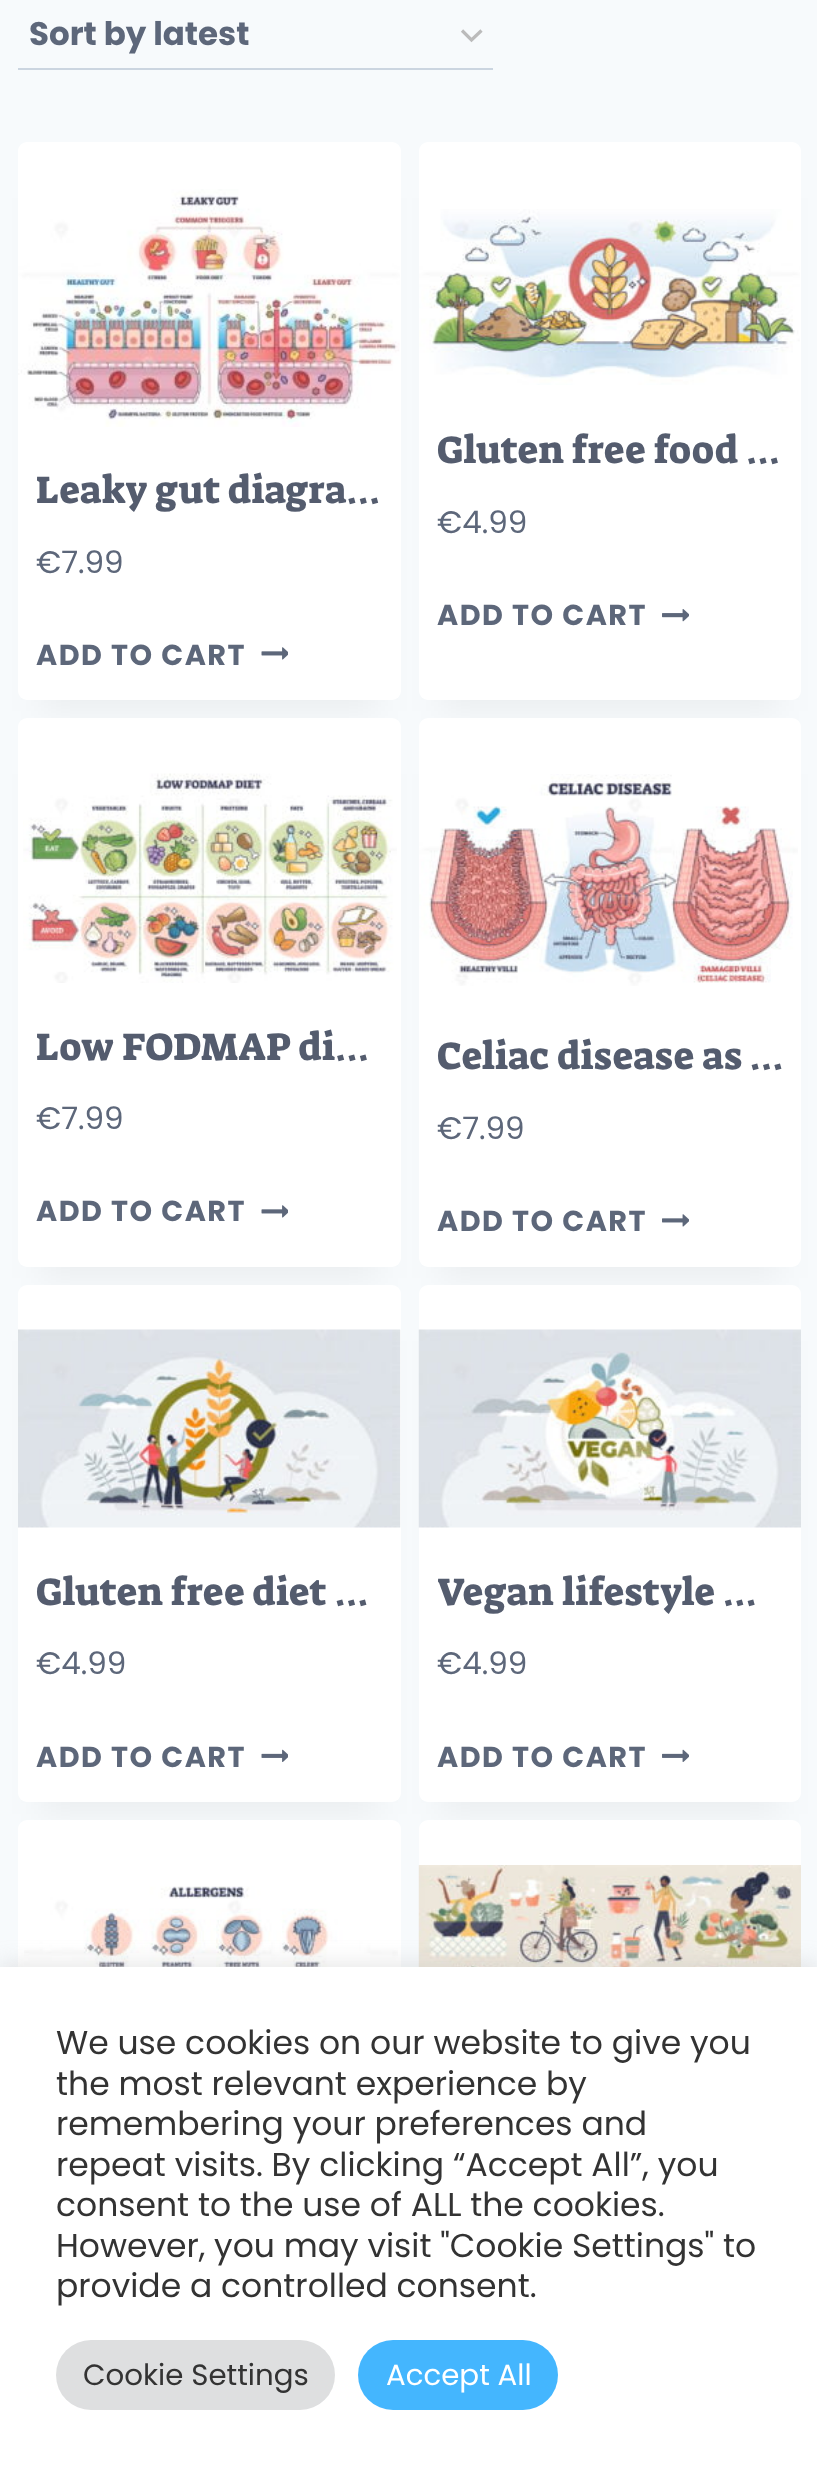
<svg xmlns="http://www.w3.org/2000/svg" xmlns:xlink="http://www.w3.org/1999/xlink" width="817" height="2476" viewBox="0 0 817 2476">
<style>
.cls-1{font:bold 32.5px Poppins;fill:#5d677a}
.cls-2{font:38.9px Suez One;fill:#545c6e}
.cls-3{font:31px Poppins;fill:#5d677a}
.cls-4{font:bold 28.75px Poppins;letter-spacing:1.5px;fill:#5d677a}
.cls-5{font:33px Poppins;fill:#333333}
.cls-6{font:29.25px Poppins;fill:#333333}
.cls-7{font:29.25px Poppins;fill:#ffffff}
</style>
<rect width="100%" height="100%" fill="#f7fafc"/>
<path fill="none" stroke="#bbbbbb" stroke-width="3.2" d="M462 30.5L471.5 40L481.5 30.5"/>
<rect fill="#cbd5e0" x="18" y="68" width="475" height="2"/>
<rect fill="#000000" fill-opacity="0.05" filter="blur(17px)" x="41" y="198" width="337" height="513"/>
<rect fill="#ffffff" x="18" y="142" width="383" height="558" rx="9"/>
<image xlink:href="image0.png" x="18" y="189" width="382" height="238"/>
<image xlink:href="image1.png" x="261" y="647" width="27" height="13"/>
<rect fill="#000000" fill-opacity="0.05" filter="blur(17px)" x="441" y="198" width="338" height="513"/>
<rect fill="#ffffff" x="419" y="142" width="382" height="558" rx="9"/>
<image xlink:href="image2.png" x="419" y="209" width="381" height="176"/>
<image xlink:href="image3.png" x="662" y="609" width="27" height="13"/>
<rect fill="#000000" fill-opacity="0.05" filter="blur(17px)" x="41" y="774" width="337" height="504"/>
<rect fill="#ffffff" x="18" y="718" width="383" height="549" rx="9"/>
<image xlink:href="image4.png" x="23" y="773" width="374" height="210"/>
<image xlink:href="image1.png" x="261" y="1205" width="27" height="13"/>
<rect fill="#000000" fill-opacity="0.05" filter="blur(17px)" x="441" y="774" width="338" height="504"/>
<rect fill="#ffffff" x="419" y="718" width="382" height="549" rx="9"/>
<image xlink:href="image5.png" x="419" y="774" width="379" height="212"/>
<image xlink:href="image6.png" x="662" y="1214" width="27" height="13"/>
<rect fill="#000000" fill-opacity="0.05" filter="blur(17px)" x="41" y="1341" width="337" height="473"/>
<rect fill="#ffffff" x="18" y="1285" width="383" height="517" rx="9"/>
<image xlink:href="image7.png" x="18" y="1329" width="383" height="199"/>
<image xlink:href="image8.png" x="261" y="1749" width="27" height="13"/>
<rect fill="#000000" fill-opacity="0.05" filter="blur(17px)" x="441" y="1341" width="338" height="473"/>
<rect fill="#ffffff" x="419" y="1285" width="382" height="517" rx="9"/>
<image xlink:href="image9.png" x="418" y="1329" width="383" height="199"/>
<image xlink:href="image10.png" x="662" y="1749" width="27" height="13"/>
<rect fill="#ffffff" x="18" y="1820" width="383" height="572" rx="9"/>
<image xlink:href="image11.png" x="24" y="1886" width="374" height="81"/>
<rect fill="#ffffff" x="419" y="1820" width="382" height="572" rx="9"/>
<image xlink:href="image12.png" x="418" y="1865" width="383" height="102"/>
<rect fill="#acabab" fill-opacity="0.3" filter="blur(11px)" x="0" y="1964" width="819" height="511"/>
<rect fill="#ffffff" x="0" y="1967" width="817" height="509"/>
<rect fill="#dedfe0" x="56" y="2340" width="279" height="70" rx="35"/>
<rect fill="#44b6fe" x="358" y="2340" width="200" height="70" rx="35"/>
<text class="cls-1" x="29" y="45">Sort by latest</text>
<text class="cls-2" x="36" y="503">Leaky gut diagra…</text>
<text class="cls-3" x="36" y="573">€7.99</text>
<text class="cls-4" x="36" y="665">ADD TO CART</text>
<text class="cls-2" x="437" y="463">Gluten free food …</text>
<text class="cls-3" x="437" y="533">€4.99</text>
<text class="cls-4" x="437" y="625">ADD TO CART</text>
<text class="cls-2" x="36" y="1060">Low FODMAP di…</text>
<text class="cls-3" x="36" y="1129">€7.99</text>
<text class="cls-4" x="36" y="1221">ADD TO CART</text>
<text class="cls-2" x="437" y="1069">Celiac disease as …</text>
<text class="cls-3" x="437" y="1139">€7.99</text>
<text class="cls-4" x="437" y="1231">ADD TO CART</text>
<text class="cls-2" x="36" y="1605">Gluten free diet …</text>
<text class="cls-3" x="36" y="1674">€4.99</text>
<text class="cls-4" x="36" y="1767">ADD TO CART</text>
<text class="cls-2" x="437" y="1605">Vegan lifestyle …</text>
<text class="cls-3" x="437" y="1674">€4.99</text>
<text class="cls-4" x="437" y="1767">ADD TO CART</text>
<text class="cls-5"><tspan x="56" y="2054">We use cookies on our website to give you</tspan><tspan x="56" y="2095">the most relevant experience by</tspan><tspan x="56" y="2135">remembering your preferences and</tspan><tspan x="56" y="2176">repeat visits. By clicking “Accept All”, you</tspan><tspan x="56" y="2216">consent to the use of ALL the cookies.</tspan><tspan x="56" y="2257">However, you may visit "Cookie Settings" to</tspan><tspan x="56" y="2297">provide a controlled consent.</tspan></text>
<text class="cls-6" x="83" y="2385">Cookie Settings</text>
<text class="cls-7" x="386" y="2385">Accept All</text>
</svg>
